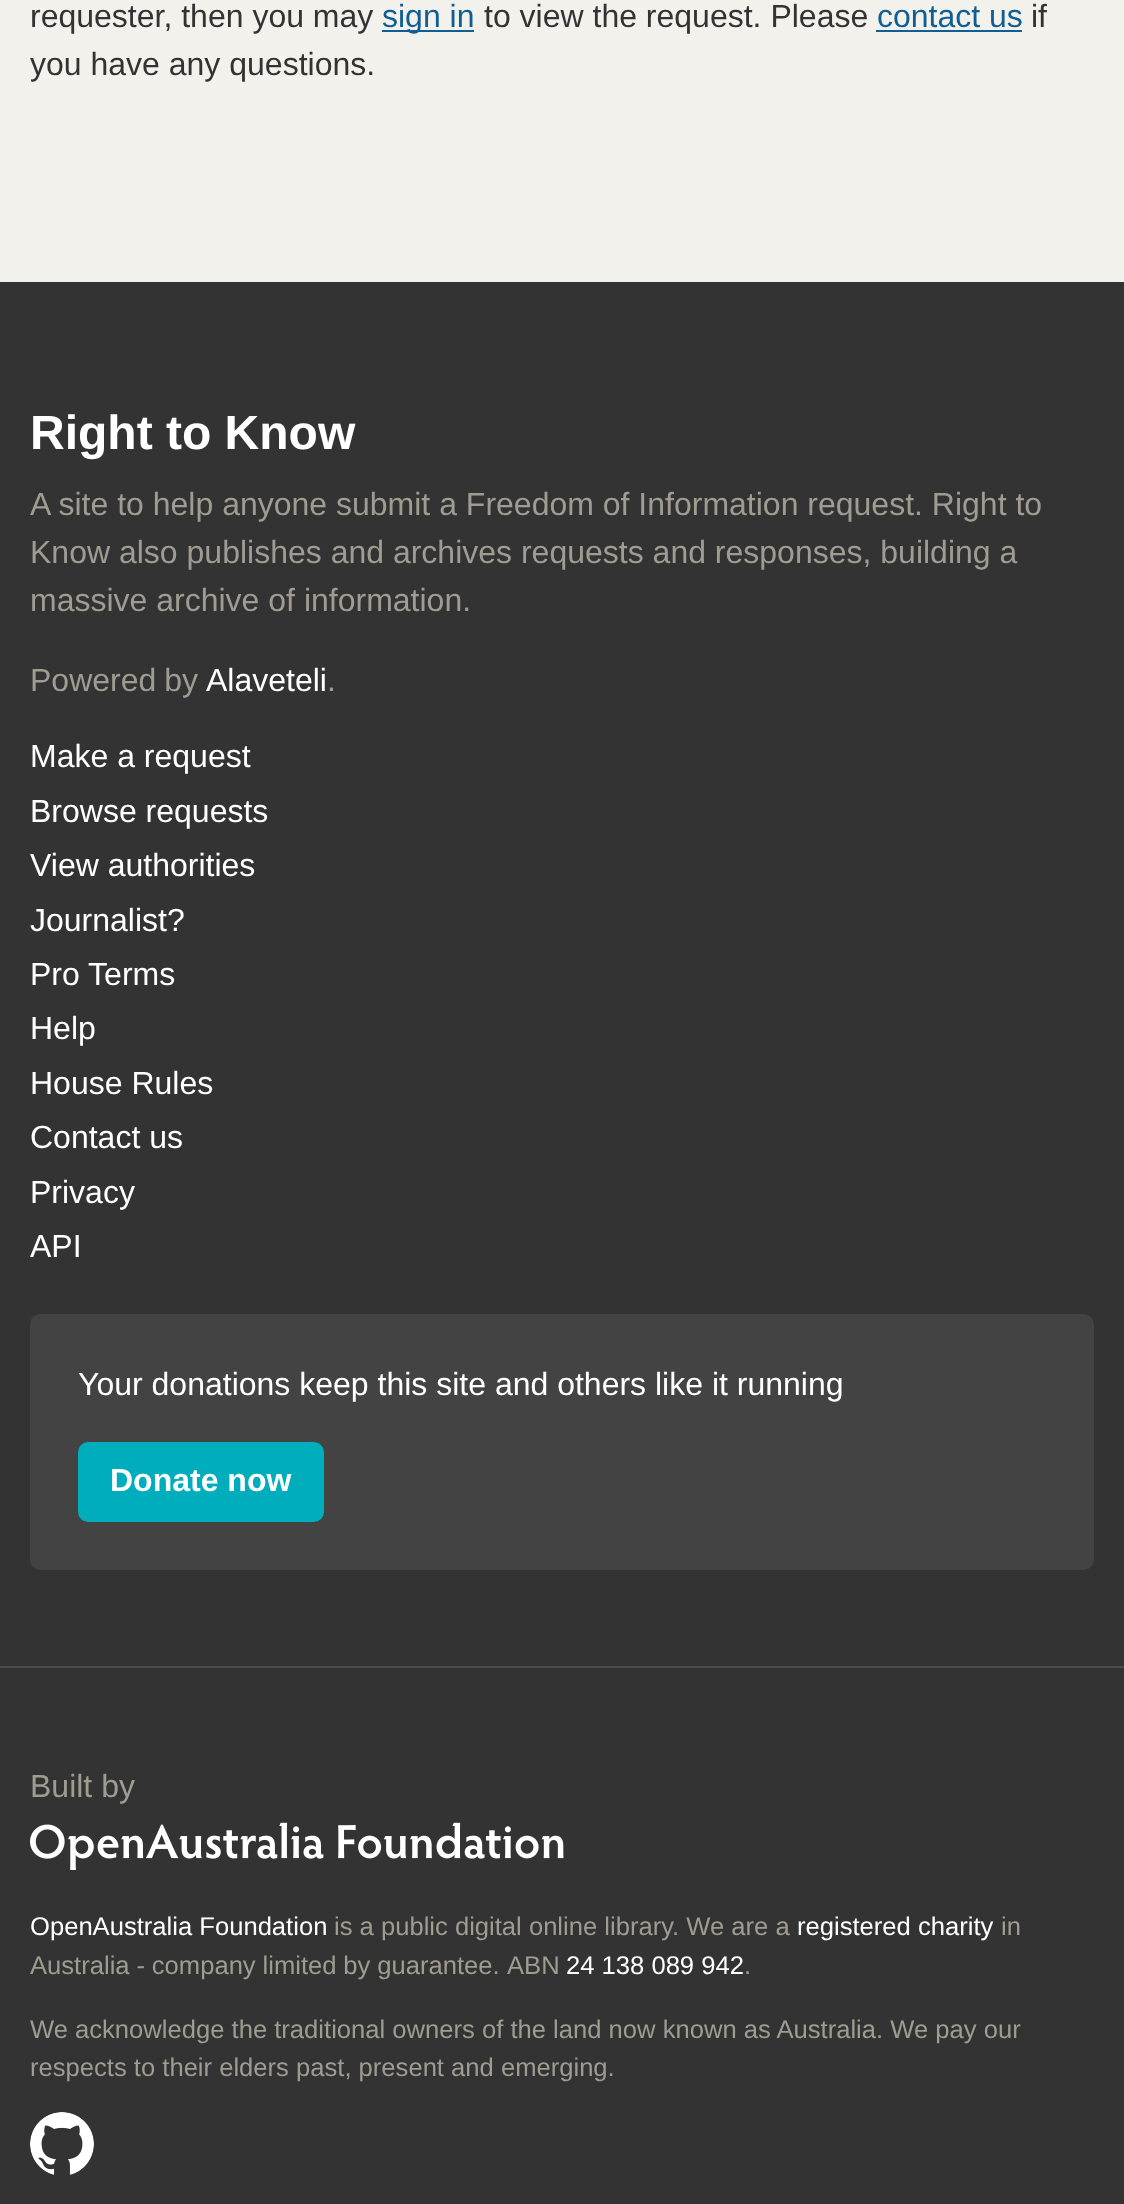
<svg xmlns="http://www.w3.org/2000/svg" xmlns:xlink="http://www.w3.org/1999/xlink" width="1124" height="2204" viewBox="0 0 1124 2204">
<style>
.cls-1{font:32px Liberation Sans;fill:#333333}
.cls-2{font:32px Liberation Sans;fill:#0f5e94}
.cls-3{font:bold 48px Liberation Sans;fill:#ffffff}
.cls-4{font:32px Liberation Sans;fill:#9f9c92}
.cls-5{font:32px Liberation Sans;fill:#ffffff}
.cls-6{font:bold 32px Liberation Sans;fill:#ffffff}
.cls-7{font:25.6px Liberation Sans;fill:#ffffff}
.cls-8{font:25.6px Liberation Sans;fill:#9f9c92}
</style>
<rect width="100%" height="100%" fill="#f3f1eb"/>
<rect fill="#0f5e94" x="382" y="30" width="92" height="2"/>
<rect fill="#0f5e94" x="876" y="30" width="146" height="2"/>
<rect fill="#333333" x="0" y="282" width="1124" height="1922"/>
<rect fill="#434343" x="30" y="1314" width="1064" height="256" rx="10"/>
<rect fill="#00adbd" x="78" y="1442" width="246" height="80" rx="10"/>
<rect fill="#4c4c4c" x="0" y="1666" width="1124" height="2"/>
<image xlink:href="image0.png" x="30" y="1822" width="534" height="48"/>
<image xlink:href="image1.png" x="30" y="2112" width="64" height="63"/>
<text class="cls-1" x="30" y="27">requester, then you may</text>
<text class="cls-2" x="382" y="27">sign in</text>
<text class="cls-1" x="484" y="27">to view the request. Please</text>
<text class="cls-2" x="877" y="27">contact us</text>
<text class="cls-1" x="1031" y="27">if</text>
<text class="cls-1" x="30" y="75">you have any questions.</text>
<text class="cls-3" x="30" y="449">Right to Know</text>
<text class="cls-4"><tspan x="30" y="515">A site to help anyone submit a Freedom of Information request. Right to</tspan><tspan x="30" y="563">Know also publishes and archives requests and responses, building a</tspan><tspan x="30" y="611">massive archive of information.</tspan></text>
<text class="cls-4" x="30" y="691" word-spacing="-1">Powered by</text>
<text class="cls-5" x="206" y="691">Alaveteli</text>
<text class="cls-4" x="327" y="691">.</text>
<text class="cls-5"><tspan x="30" y="767">Make a request</tspan><tspan x="30" y="822">Browse requests</tspan><tspan x="30" y="876">View authorities</tspan><tspan x="30" y="931">Journalist?</tspan><tspan x="30" y="985">Pro Terms</tspan><tspan x="30" y="1039">Help</tspan><tspan x="30" y="1094">House Rules</tspan><tspan x="30" y="1148">Contact us</tspan><tspan x="30" y="1203">Privacy</tspan><tspan x="30" y="1257">API</tspan></text>
<text class="cls-5" x="78" y="1395">Your donations keep this site and others like it running</text>
<text class="cls-6" x="110" y="1491">Donate now</text>
<text class="cls-4" x="30" y="1797">Built by</text>
<text class="cls-7" x="30" y="1935">OpenAustralia Foundation</text>
<text class="cls-8" x="334" y="1935">is a public digital online library. We are a</text>
<text class="cls-7" x="797" y="1935">registered charity</text>
<text class="cls-8" x="1001" y="1935">in</text>
<text class="cls-8" x="30" y="1974" word-spacing="-0.25">Australia - company limited by guarantee.</text>
<text class="cls-8" x="507" y="1974">ABN</text>
<text class="cls-7" x="566" y="1974">24 138 089 942</text>
<text class="cls-8" x="744" y="1974">.</text>
<text class="cls-8"><tspan x="30" y="2038">We acknowledge the traditional owners of the land now known as Australia. We pay our</tspan><tspan x="30" y="2076">respects to their elders past, present and emerging.</tspan></text>
</svg>
